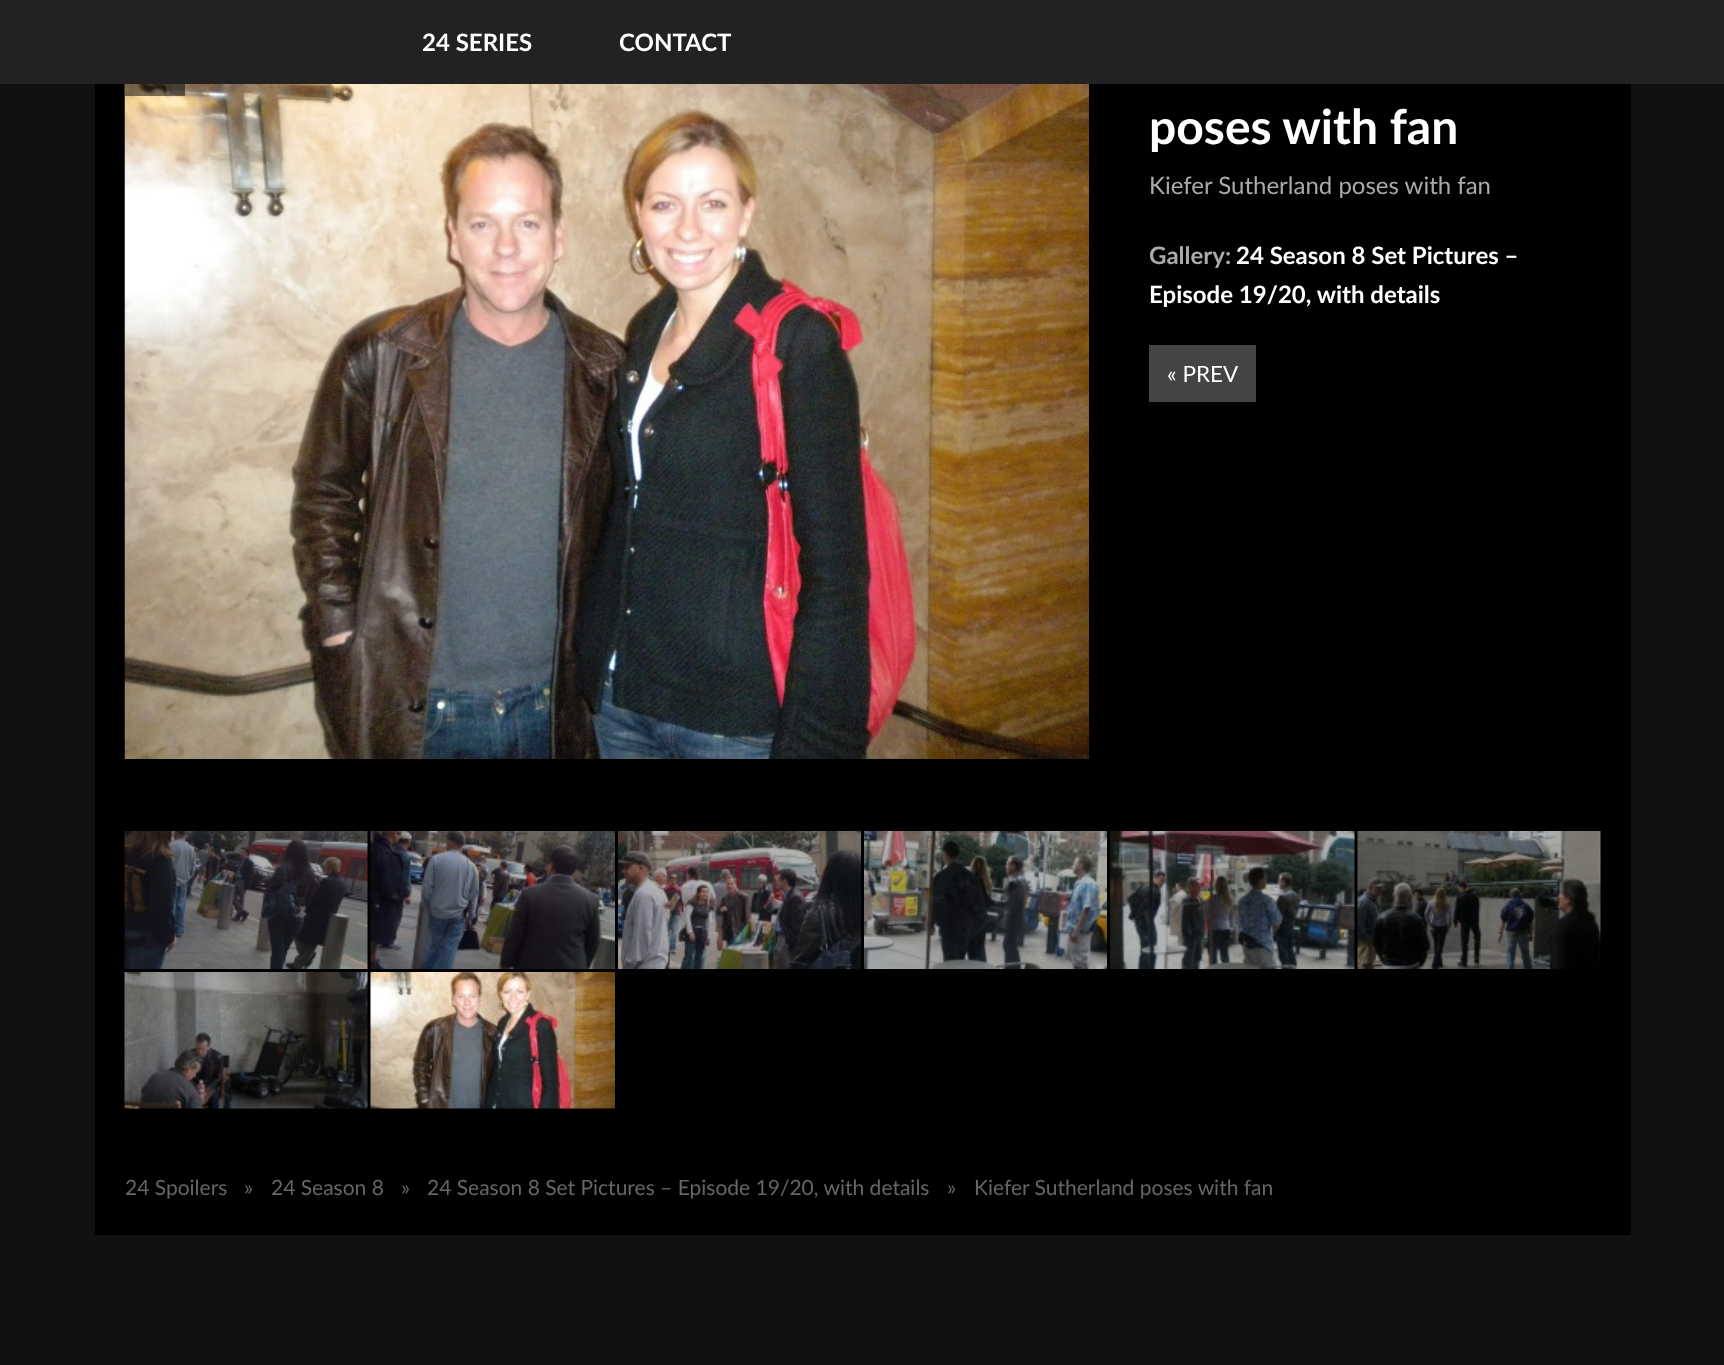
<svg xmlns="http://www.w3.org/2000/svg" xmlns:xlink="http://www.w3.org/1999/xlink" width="1724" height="1365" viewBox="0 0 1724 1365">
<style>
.cls-1{font:bold 24px Lato;fill:#ffffff}
.cls-2{font:bold 48px Lato;fill:#ffffff}
.cls-3{font:24px Lato;fill:#aaaaaa}
.cls-4{font:bold 24px Lato;fill:#aaaaaa}
.cls-5{font:22.5px Lato;fill:#ffffff}
.cls-6{font:21px Lato;fill:#666666}
</style>
<rect width="100%" height="100%" fill="#111111"/>
<rect fill="#222222" x="0" y="0" width="1724" height="84"/>
<rect fill="#000000" x="95" y="84" width="1536" height="1151"/>
<image xlink:href="image0.png" x="124" y="84" width="965" height="675"/>
<rect fill="#000000" fill-opacity="0.5" x="125" y="84" width="60" height="12"/>
<rect fill="#444444" x="1149" y="345" width="107" height="57"/>
<image xlink:href="image1.png" x="124" y="831" width="244" height="138"/>
<image xlink:href="image2.png" x="370" y="831" width="245" height="138"/>
<image xlink:href="image3.png" x="618" y="831" width="243" height="138"/>
<image xlink:href="image4.png" x="864" y="831" width="243" height="138"/>
<image xlink:href="image5.png" x="1110" y="831" width="245" height="138"/>
<image xlink:href="image6.png" x="1357" y="831" width="244" height="138"/>
<image xlink:href="image7.png" x="124" y="972" width="244" height="137"/>
<image xlink:href="image8.png" x="370" y="972" width="245" height="137"/>
<text class="cls-1" x="422" y="51">24 SERIES</text>
<text class="cls-1" x="619" y="51">CONTACT</text>
<text class="cls-2" x="1149" y="144">poses with fan</text>
<text class="cls-3" x="1149" y="194">Kiefer Sutherland poses with fan</text>
<text class="cls-4" x="1149" y="264">Gallery:</text>
<text class="cls-1" x="1236" y="264">24 Season 8 Set Pictures –</text>
<text class="cls-1" x="1149" y="303">Episode 19/20, with details</text>
<text class="cls-5" x="1167" y="382">« PREV</text>
<text class="cls-6" x="125" y="1195">24 Spoilers</text>
<text class="cls-6" x="244" y="1195">»</text>
<text class="cls-6" x="271" y="1195">24 Season 8</text>
<text class="cls-6" x="401" y="1195">»</text>
<text class="cls-6" x="427" y="1195">24 Season 8 Set Pictures – Episode 19/20, with details</text>
<text class="cls-6" x="947" y="1195">»</text>
<text class="cls-6" x="974" y="1195">Kiefer Sutherland poses with fan</text>
</svg>
